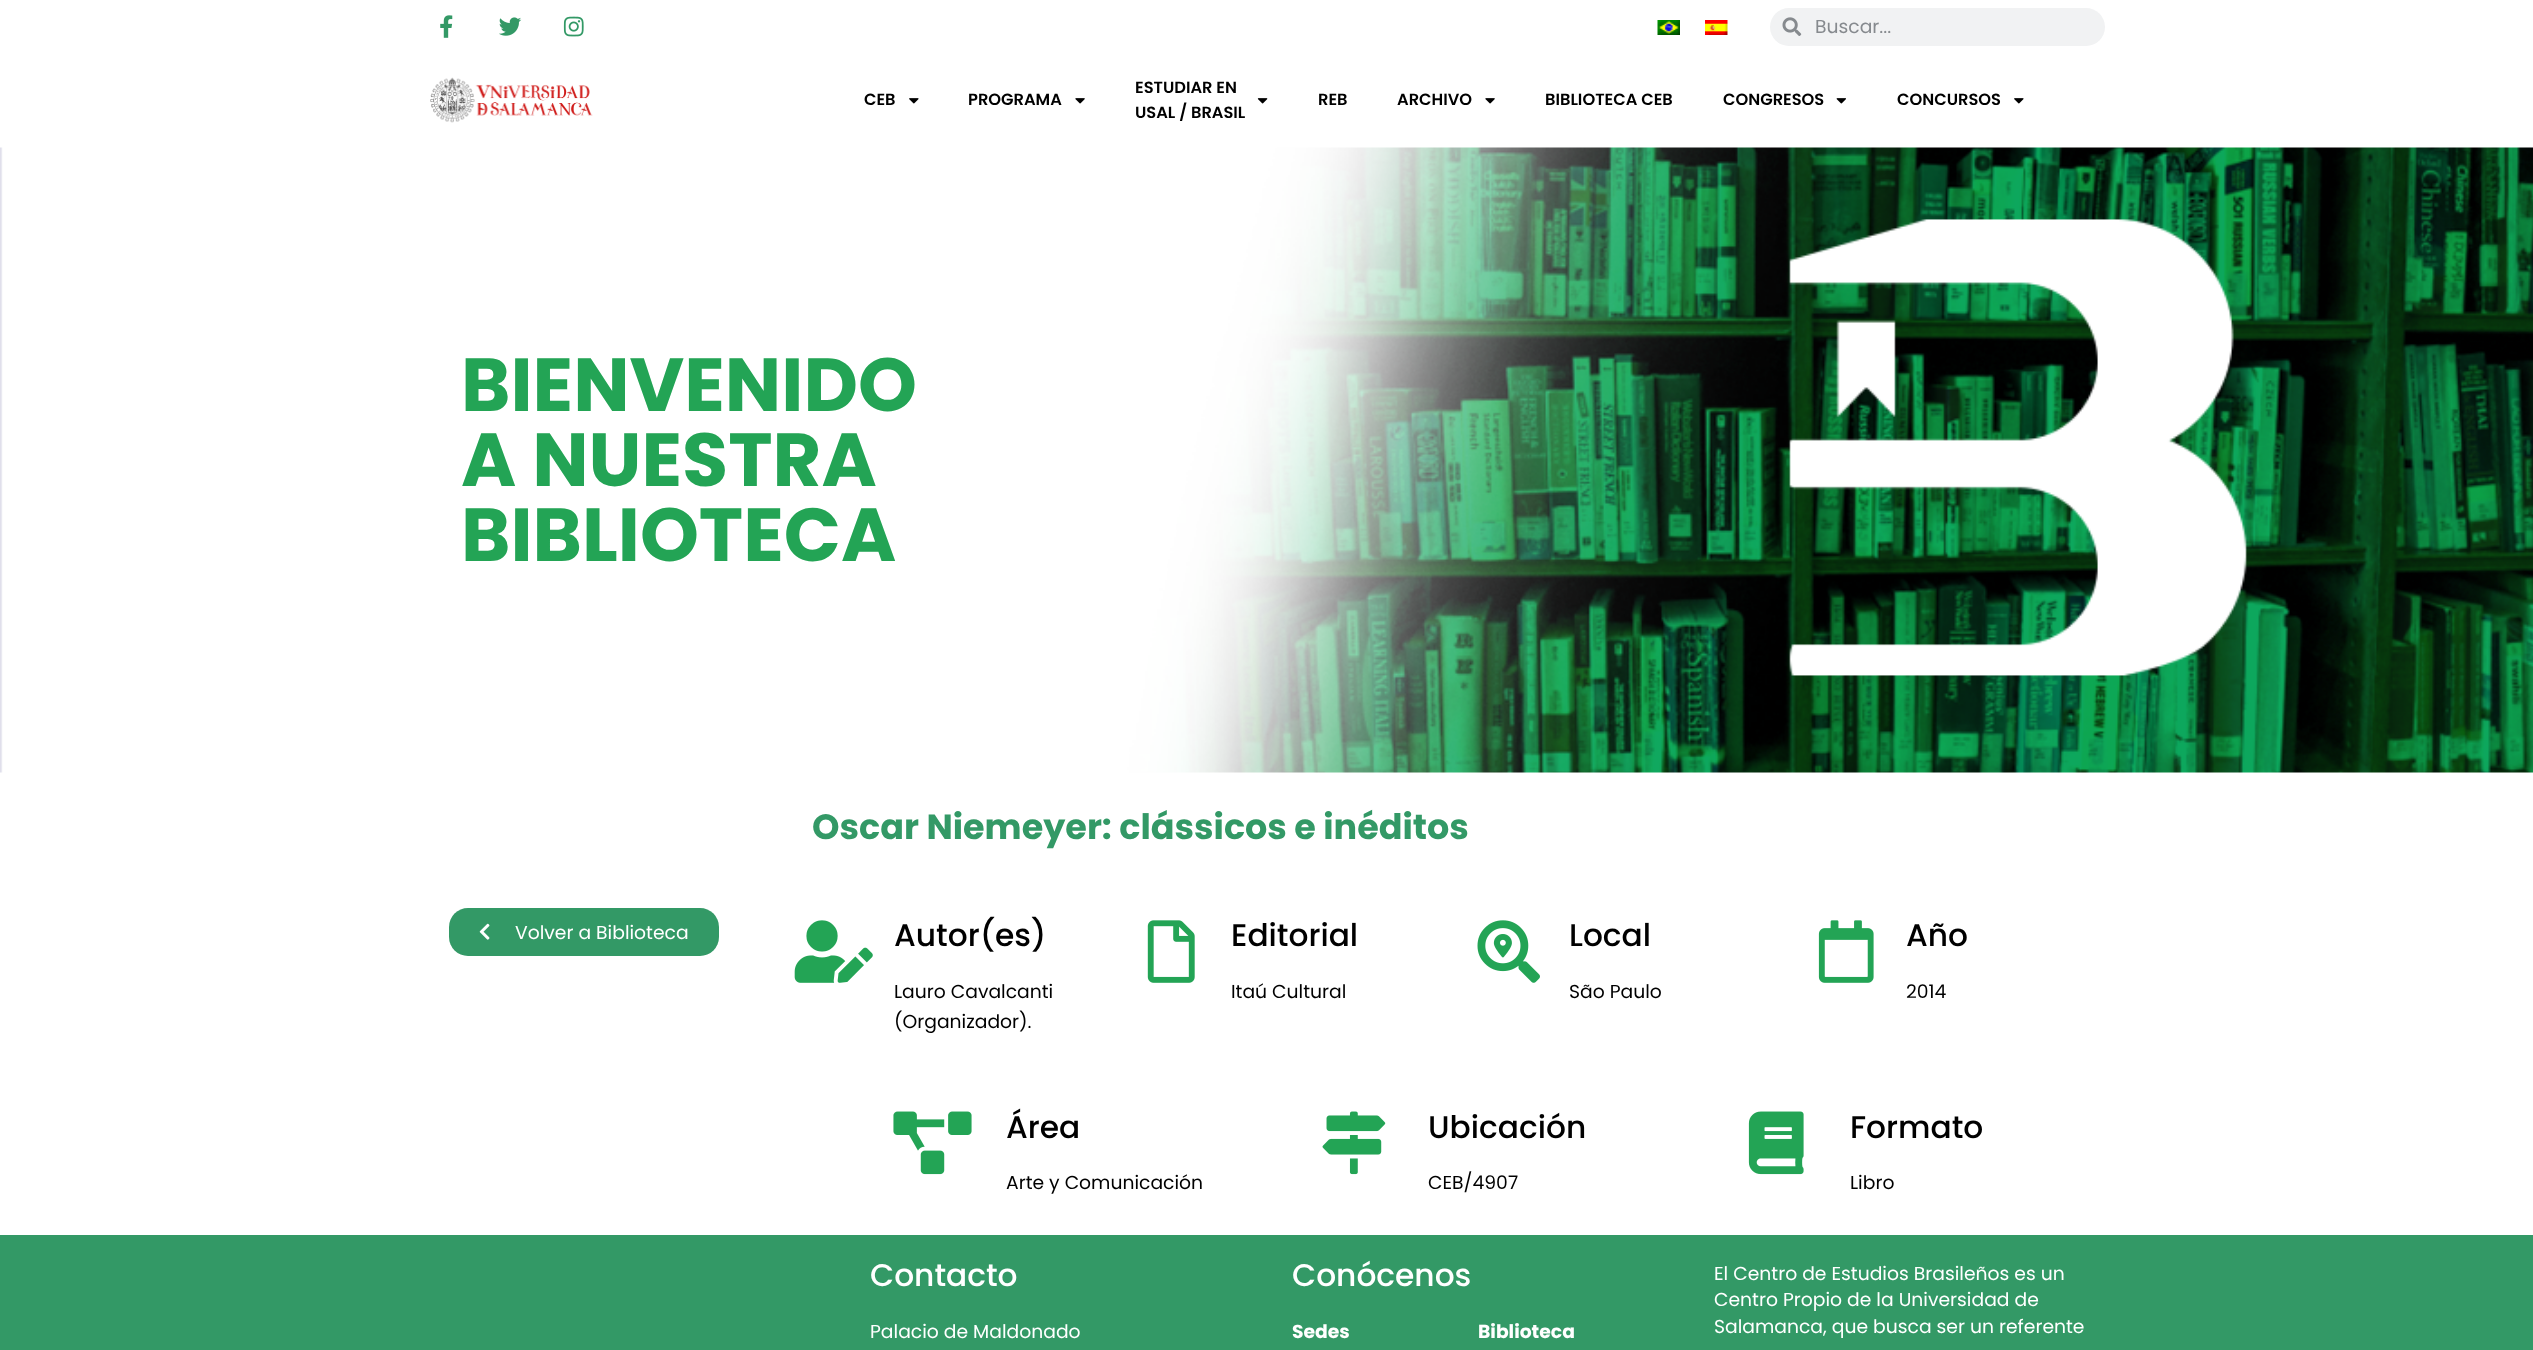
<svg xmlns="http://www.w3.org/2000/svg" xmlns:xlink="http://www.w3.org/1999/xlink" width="2533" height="1350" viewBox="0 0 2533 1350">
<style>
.cls-1{font:18.75px Poppins;fill:#868a8e}
.cls-2{font:600 16.25px Poppins;fill:#000000}
.cls-3{font:bold 75px Poppins;fill:#23a455}
.cls-4{font:bold 35px Poppins;fill:#339966}
.cls-5{font:18.75px Poppins;fill:#ffffff}
.cls-6{font:500 31.25px Poppins;fill:#000000}
.cls-7{font:18.75px Poppins;fill:#000000}
.cls-8{font:500 31.25px Poppins;fill:#ffffff}
.cls-9{font:bold 18.75px Poppins;fill:#ffffff}
</style>
<rect width="100%" height="100%" fill="#ffffff"/>
<image xlink:href="image0.png" x="440" y="15" width="13" height="23"/>
<image xlink:href="image1.png" x="499" y="17" width="23" height="19"/>
<image xlink:href="image2.png" x="563" y="16" width="21" height="21"/>
<image xlink:href="image3.png" x="1657" y="20" width="23" height="15"/>
<image xlink:href="image4.png" x="1705" y="20" width="23" height="15"/>
<rect fill="#f1f2f3" x="1770" y="8" width="335" height="38" rx="19"/>
<image xlink:href="image5.png" x="1782" y="17" width="20" height="19"/>
<image xlink:href="image6.png" x="430" y="77" width="163" height="46"/>
<image xlink:href="image7.png" x="909" y="98" width="10" height="6"/>
<image xlink:href="image8.png" x="1075" y="98" width="10" height="6"/>
<image xlink:href="image9.png" x="1257" y="98" width="11" height="6"/>
<image xlink:href="image8.png" x="1485" y="98" width="10" height="6"/>
<image xlink:href="image10.png" x="1836" y="98" width="10" height="6"/>
<image xlink:href="image7.png" x="2014" y="98" width="10" height="6"/>
<image xlink:href="image11.png" x="0" y="147" width="2533" height="626"/>
<rect fill="#339966" x="449" y="908" width="270" height="48" rx="19"/>
<image xlink:href="image12.png" x="479" y="923" width="11" height="17"/>
<image xlink:href="image13.png" x="794" y="920" width="79" height="63"/>
<image xlink:href="image14.png" x="1147" y="920" width="48" height="63"/>
<image xlink:href="image15.png" x="1477" y="920" width="63" height="63"/>
<image xlink:href="image16.png" x="1818" y="920" width="56" height="63"/>
<image xlink:href="image17.png" x="893" y="1111" width="79" height="64"/>
<image xlink:href="image18.png" x="1322" y="1111" width="64" height="64"/>
<image xlink:href="image19.png" x="1748" y="1111" width="56" height="64"/>
<rect fill="#339966" x="0" y="1235" width="2533" height="115"/>
<text class="cls-1" x="1815" y="33">Buscar...</text>
<text class="cls-2" x="864" y="105">CEB</text>
<text class="cls-2" x="968" y="105">PROGRAMA</text>
<text class="cls-2"><tspan x="1135" y="93">ESTUDIAR EN</tspan><tspan x="1135" y="118">USAL / BRASIL</tspan></text>
<text class="cls-2" x="1318" y="105">REB</text>
<text class="cls-2" x="1397" y="105">ARCHIVO</text>
<text class="cls-2" x="1545" y="105">BIBLIOTECA CEB</text>
<text class="cls-2" x="1723" y="105">CONGRESOS</text>
<text class="cls-2" x="1897" y="105">CONCURSOS</text>
<text class="cls-3"><tspan x="461" y="411">BIENVENIDO</tspan><tspan x="461" y="486">A NUESTRA</tspan><tspan x="461" y="561">BIBLIOTECA</tspan></text>
<text class="cls-4" x="812" y="839">Oscar Niemeyer: clássicos e inéditos</text>
<text class="cls-5" x="515" y="939">Volver a Biblioteca</text>
<text class="cls-6" x="894" y="946">Autor(es)</text>
<text class="cls-7"><tspan x="894" y="998">Lauro Cavalcanti</tspan><tspan x="894" y="1028">(Organizador).</tspan></text>
<text class="cls-6" x="1231" y="946">Editorial</text>
<text class="cls-7" x="1231" y="998">Itaú Cultural</text>
<text class="cls-6" x="1569" y="946">Local</text>
<text class="cls-7" x="1569" y="998">São Paulo</text>
<text class="cls-6" x="1906" y="946">Año</text>
<text class="cls-7" x="1906" y="998">2014</text>
<text class="cls-6" x="1006" y="1138">Área</text>
<text class="cls-7" x="1006" y="1189">Arte y Comunicación</text>
<text class="cls-6" x="1428" y="1138">Ubicación</text>
<text class="cls-7" x="1428" y="1189">CEB/4907</text>
<text class="cls-6" x="1850" y="1138">Formato</text>
<text class="cls-7" x="1850" y="1189">Libro</text>
<text class="cls-8" x="870" y="1286">Contacto</text>
<text class="cls-5" x="870" y="1338">Palacio de Maldonado</text>
<text class="cls-8" x="1292" y="1286">Conócenos</text>
<text class="cls-9" x="1292" y="1338">Sedes</text>
<text class="cls-9" x="1478" y="1338">Biblioteca</text>
<text class="cls-5"><tspan x="1714" y="1280">El Centro de Estudios Brasileños es un</tspan><tspan x="1714" y="1306">Centro Propio de la Universidad de</tspan><tspan x="1714" y="1333">Salamanca, que busca ser un referente</tspan></text>
</svg>
